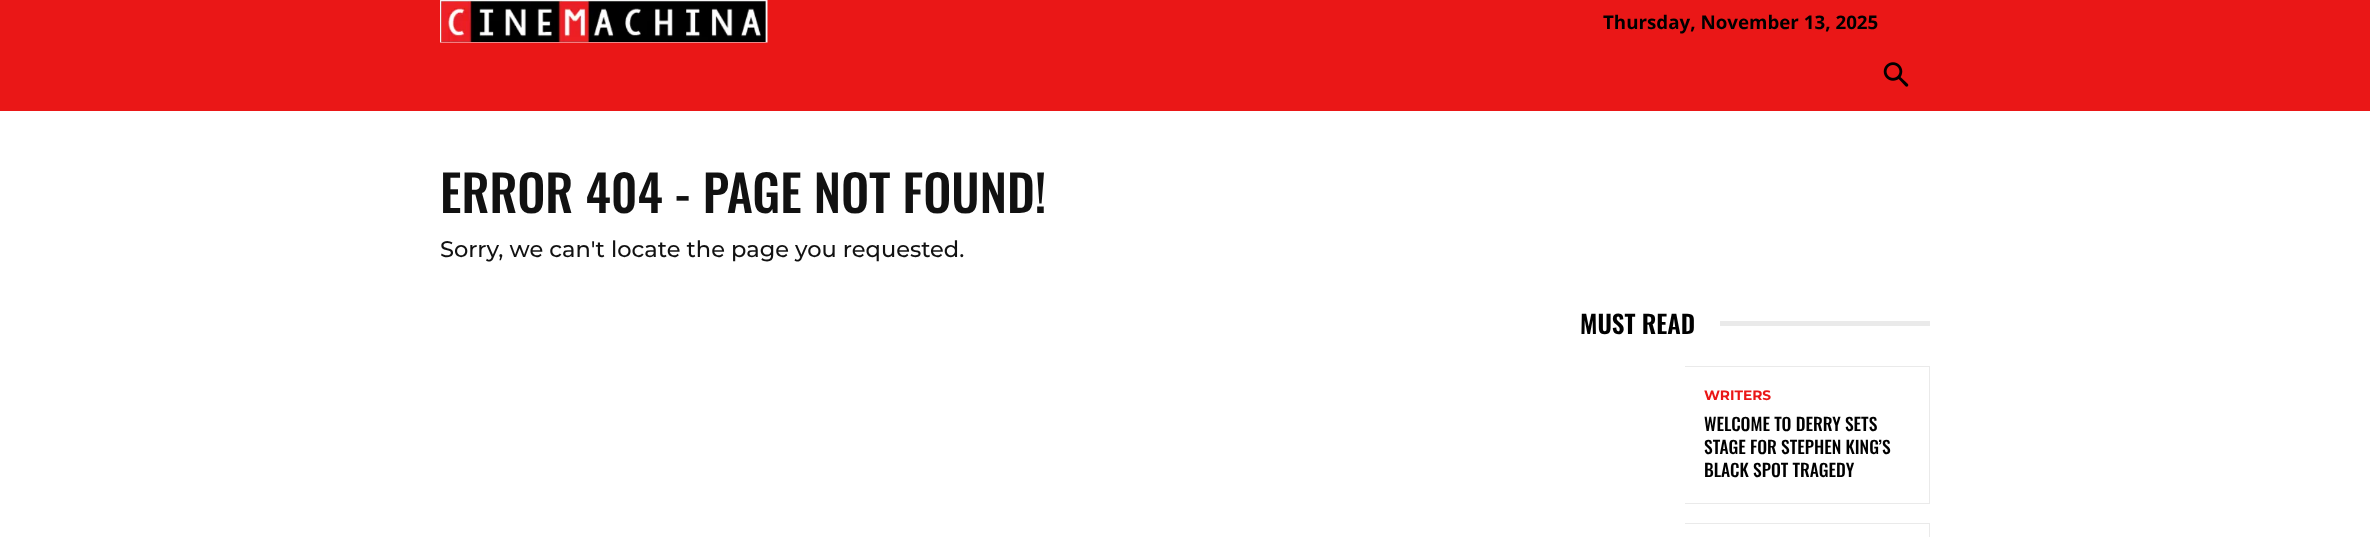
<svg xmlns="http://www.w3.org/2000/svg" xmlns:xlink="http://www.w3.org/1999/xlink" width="2370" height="537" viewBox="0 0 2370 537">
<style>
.cls-1{font:bold 18.75px Open Sans;fill:#000000}
.cls-2{font:500 50px Oswald;fill:#111111}
.cls-3{font:500 22.5px Montserrat;fill:#111111}
.cls-4{font:600 25px Oswald;fill:#000000}
.cls-5{font:bold 13.75px Montserrat;fill:#ea1717}
.cls-6{font:500 17.5px Oswald;fill:#000000}
</style>
<rect width="100%" height="100%" fill="#ffffff"/>
<rect fill="#ea1717" x="0" y="0" width="2370" height="111"/>
<image xlink:href="image0.png" x="440" y="0" width="328" height="43"/>
<image xlink:href="image1.png" x="1883" y="62" width="26" height="25"/>
<rect fill="#eaeaea" x="1720" y="321" width="210" height="5"/>
<rect fill="#eaeaea" x="1685" y="366" width="245" height="1"/>
<rect fill="#eaeaea" x="1929" y="366" width="1" height="138"/>
<rect fill="#eaeaea" x="1685" y="503" width="245" height="1"/>
<rect fill="#eaeaea" x="1685" y="523" width="245" height="1"/>
<rect fill="#eaeaea" x="1929" y="523" width="1" height="14"/>
<text class="cls-1" x="1603" y="29">Thursday, November 13, 2025</text>
<text class="cls-2" x="440" y="213">ERROR 404 - PAGE NOT FOUND!</text>
<text class="cls-3" x="440" y="257">Sorry, we can't locate the page you requested.</text>
<text class="cls-4" x="1580" y="334">MUST READ</text>
<text class="cls-5" x="1704" y="400">WRITERS</text>
<text class="cls-6"><tspan x="1704" y="431">WELCOME TO DERRY SETS</tspan><tspan x="1704" y="454">STAGE FOR STEPHEN KING’S</tspan><tspan x="1704" y="477">BLACK SPOT TRAGEDY</tspan></text>
</svg>
